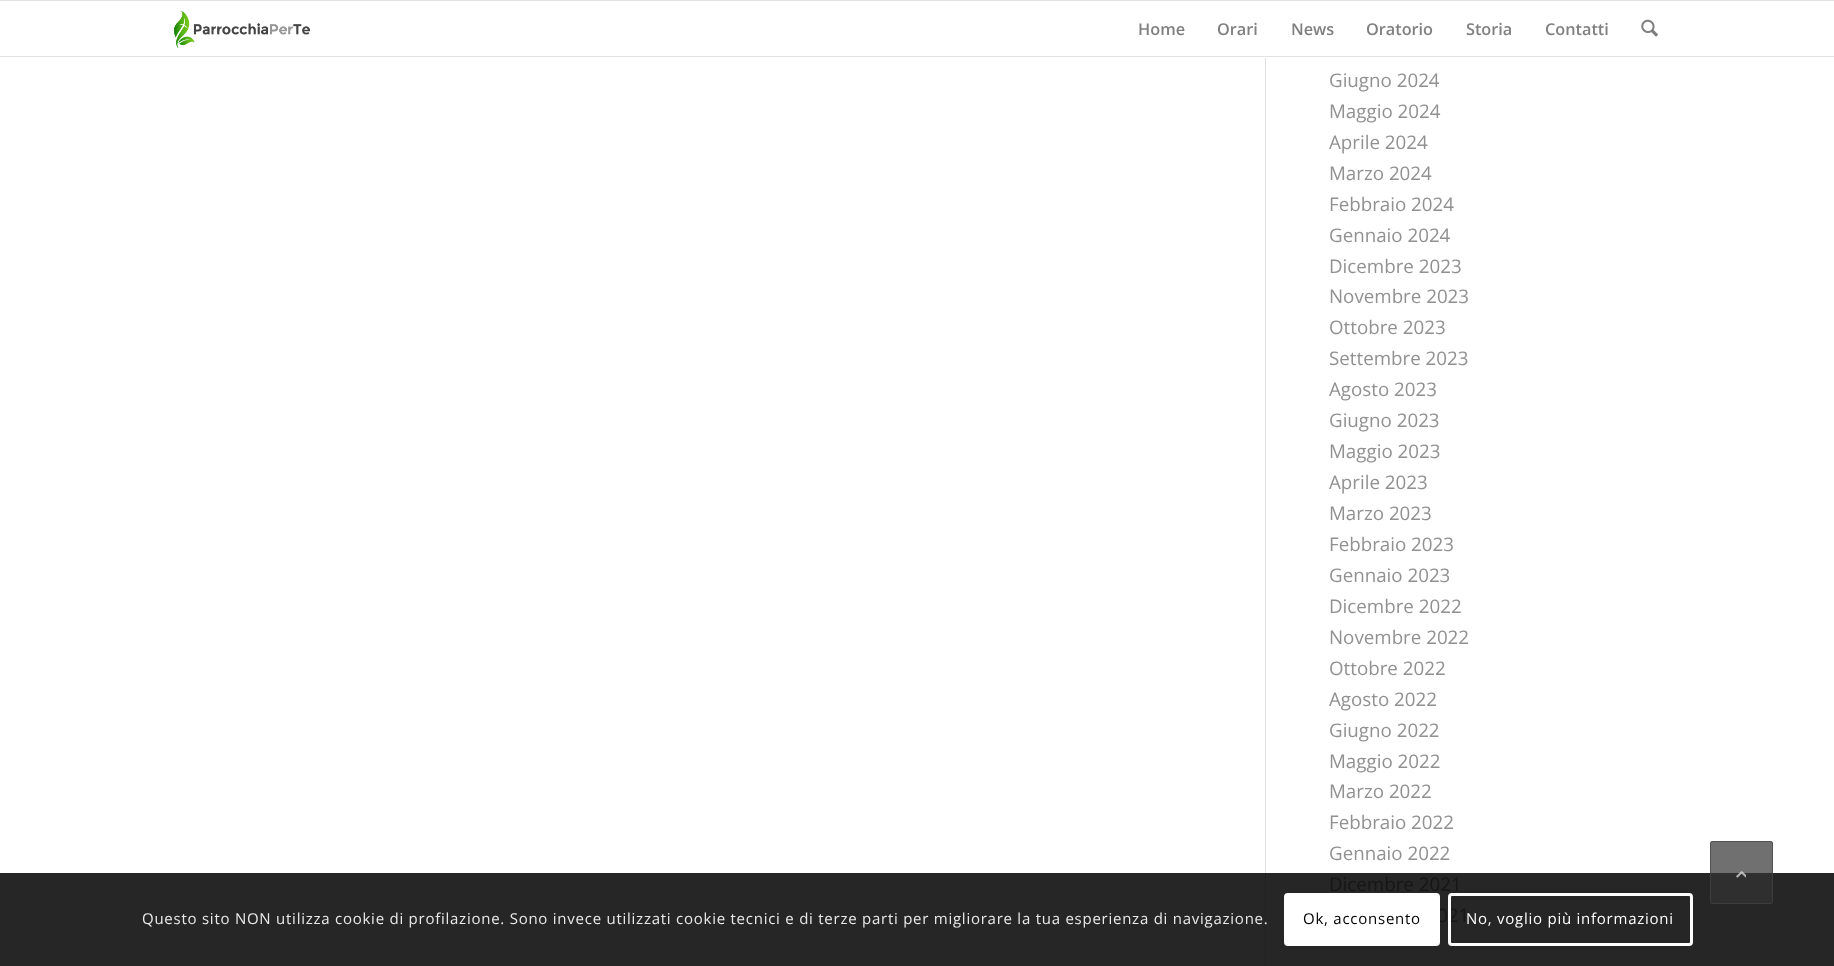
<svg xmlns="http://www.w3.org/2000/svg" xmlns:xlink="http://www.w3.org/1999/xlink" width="1834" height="966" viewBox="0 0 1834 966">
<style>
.cls-1{font:600 16.25px Open Sans;fill:#808080}
.cls-2{font:18.75px Open Sans;fill:#919191}
.cls-3{font:18.75px Open Sans;fill:#161616}
.cls-4{font:15px Open Sans;letter-spacing:0.75px;fill:#e9e9e9}
.cls-5{font:15px Open Sans;letter-spacing:0.75px;fill:#000000}
.cls-6{font:15px Open Sans;letter-spacing:0.75px;fill:#ffffff}
</style>
<rect width="100%" height="100%" fill="#ffffff"/>
<rect fill="#262626" x="0" y="873" width="1834" height="93"/>
<rect fill="#e1e1e1" x="1265" y="0" width="1" height="873"/>
<rect fill="#ffffff" fill-opacity="0.95" x="1265" y="1" width="1" height="57"/>
<rect fill="#e1e1e1" x="0" y="0" width="1834" height="1"/>
<rect fill="#e1e1e1" x="0" y="56" width="1834" height="1"/>
<image xlink:href="image0.png" x="174" y="11" width="136" height="38"/>
<image xlink:href="image1.png" x="1641" y="19" width="17" height="18"/>
<rect fill="#222222" x="1265" y="873" width="1" height="93"/>
<rect fill="#333333" fill-opacity="0.7" x="1710" y="841" width="63" height="63" rx="2.5"/>
<rect fill="none" stroke="#444444" stroke-opacity="0.7" x="1710.5" y="841.5" width="62" height="62" rx="2"/>
<image xlink:href="image2.png" x="1736" y="871" width="10" height="7"/>
<text class="cls-1" x="1138" y="35">Home</text>
<text class="cls-1" x="1217" y="35">Orari</text>
<text class="cls-1" x="1291" y="35">News</text>
<text class="cls-1" x="1366" y="35">Oratorio</text>
<text class="cls-1" x="1466" y="35">Storia</text>
<text class="cls-1" x="1545" y="35">Contatti</text>
<text class="cls-2"><tspan x="1329" y="87">Giugno 2024</tspan><tspan x="1329" y="118">Maggio 2024</tspan><tspan x="1329" y="149">Aprile 2024</tspan><tspan x="1329" y="180">Marzo 2024</tspan><tspan x="1329" y="211">Febbraio 2024</tspan><tspan x="1329" y="242">Gennaio 2024</tspan><tspan x="1329" y="273">Dicembre 2023</tspan><tspan x="1329" y="303">Novembre 2023</tspan><tspan x="1329" y="334">Ottobre 2023</tspan><tspan x="1329" y="365">Settembre 2023</tspan><tspan x="1329" y="396">Agosto 2023</tspan><tspan x="1329" y="427">Giugno 2023</tspan><tspan x="1329" y="458">Maggio 2023</tspan><tspan x="1329" y="489">Aprile 2023</tspan><tspan x="1329" y="520">Marzo 2023</tspan><tspan x="1329" y="551">Febbraio 2023</tspan><tspan x="1329" y="582">Gennaio 2023</tspan><tspan x="1329" y="613">Dicembre 2022</tspan><tspan x="1329" y="644">Novembre 2022</tspan><tspan x="1329" y="675">Ottobre 2022</tspan><tspan x="1329" y="706">Agosto 2022</tspan><tspan x="1329" y="737">Giugno 2022</tspan><tspan x="1329" y="768">Maggio 2022</tspan><tspan x="1329" y="798">Marzo 2022</tspan><tspan x="1329" y="829">Febbraio 2022</tspan><tspan x="1329" y="860">Gennaio 2022</tspan></text>
<text class="cls-3" x="1329" y="891">Dicembre 2021</text>
<text class="cls-3" x="1437" y="922">021</text>
<text class="cls-4" x="142" y="924">Questo sito NON utilizza cookie di profilazione. Sono invece utilizzati cookie tecnici e di terze parti per migliorare la tua esperienza di navigazione.</text>
<rect fill="#ffffff" x="1284" y="893" width="156" height="53" rx="4"/>
<text class="cls-5" x="1303" y="924">Ok, acconsento</text>
<rect fill="none" stroke="#ffffff" stroke-width="3" x="1449.5" y="894.5" width="242" height="50" rx="2.5"/>
<text class="cls-6" x="1466" y="924">No, voglio più informazioni</text>
</svg>
